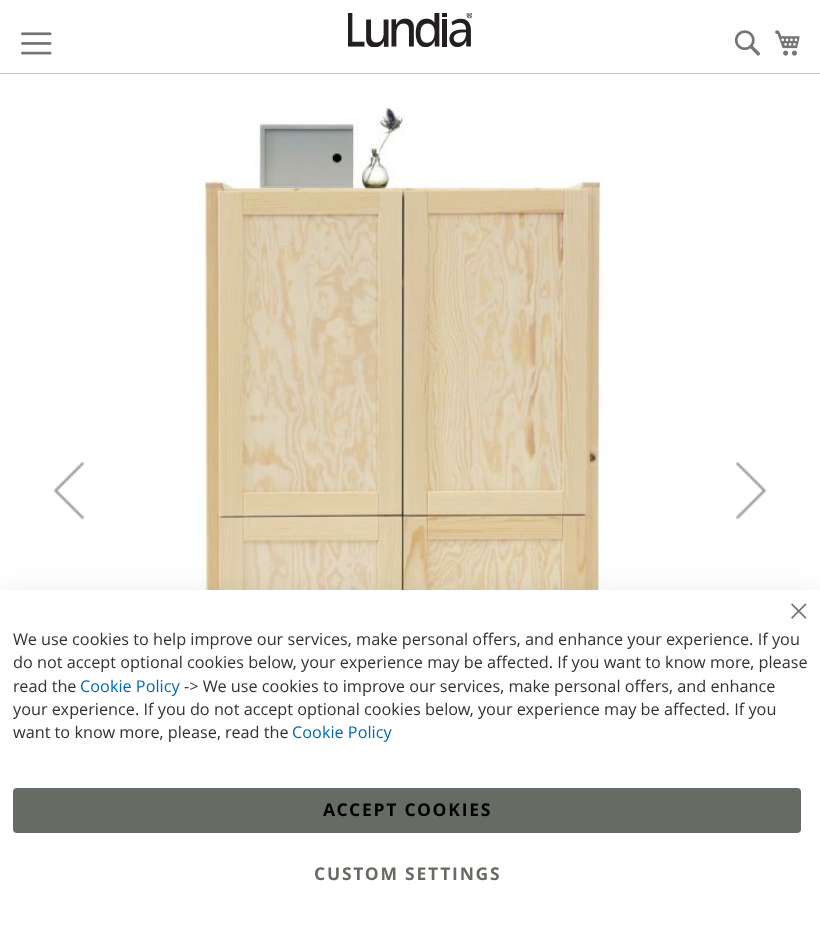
<svg xmlns="http://www.w3.org/2000/svg" xmlns:xlink="http://www.w3.org/1999/xlink" width="820" height="933" viewBox="0 0 820 933">
<style>
.cls-1{font:16.25px Open Sans;fill:#333333}
.cls-2{font:16.25px Open Sans;fill:#006bb4}
.cls-3{font:bold 17.5px Open Sans;letter-spacing:1.75px;fill:#000000}
.cls-4{font:bold 17.5px Open Sans;letter-spacing:1.75px;fill:#666c63}
</style>
<defs>
<clipPath id="clip1"><rect x="13" y="628" width="795" height="116"/></clipPath>
</defs>
<rect width="100%" height="100%" fill="#ffffff"/>
<rect fill="#cccccc" x="0" y="73" width="820" height="1"/>
<image xlink:href="image0.png" x="21" y="32" width="31" height="23"/>
<image xlink:href="image1.png" x="348" y="13" width="124" height="34"/>
<image xlink:href="image2.png" x="734" y="30" width="27" height="26"/>
<image xlink:href="image3.png" x="775" y="30" width="25" height="26"/>
<image xlink:href="image4.png" x="53" y="461" width="32" height="59"/>
<image xlink:href="image5.png" x="199" y="107" width="410" height="483"/>
<image xlink:href="image6.png" x="735" y="461" width="32" height="59"/>
<rect fill="#000000" fill-opacity="0.06" filter="blur(11px)" x="0" y="588" width="820" height="343"/>
<rect fill="#ffffff" x="0" y="590" width="820" height="343"/>
<image xlink:href="image7.png" x="791" y="603" width="16" height="16"/>
<rect fill="#666c63" x="13" y="788" width="788" height="45" rx="4"/>
<text class="cls-1"><tspan x="13" y="645">We use cookies to help improve our services, make personal offers, and enhance your experience. If you</tspan><tspan x="13" y="668">do not accept optional cookies below, your experience may be affected. If you want to know more, please</tspan><tspan x="13" y="692">read the</tspan></text>
<text class="cls-2" x="80" y="692">Cookie Policy</text>
<text class="cls-1" x="184" y="692">-&gt; We use cookies to improve our services, make personal offers, and enhance</text>
<g clip-path="url(#clip1)">
<text class="cls-1" x="13" y="715">your experience. If you do not accept optional cookies below, your experience may be affected. If you</text>
</g>
<text class="cls-1" x="13" y="738">want to know more, please, read the</text>
<text class="cls-2" x="292" y="738">Cookie Policy</text>
<text class="cls-3" x="323" y="816">ACCEPT COOKIES</text>
<text class="cls-4" x="314" y="880">CUSTOM SETTINGS</text>
</svg>
